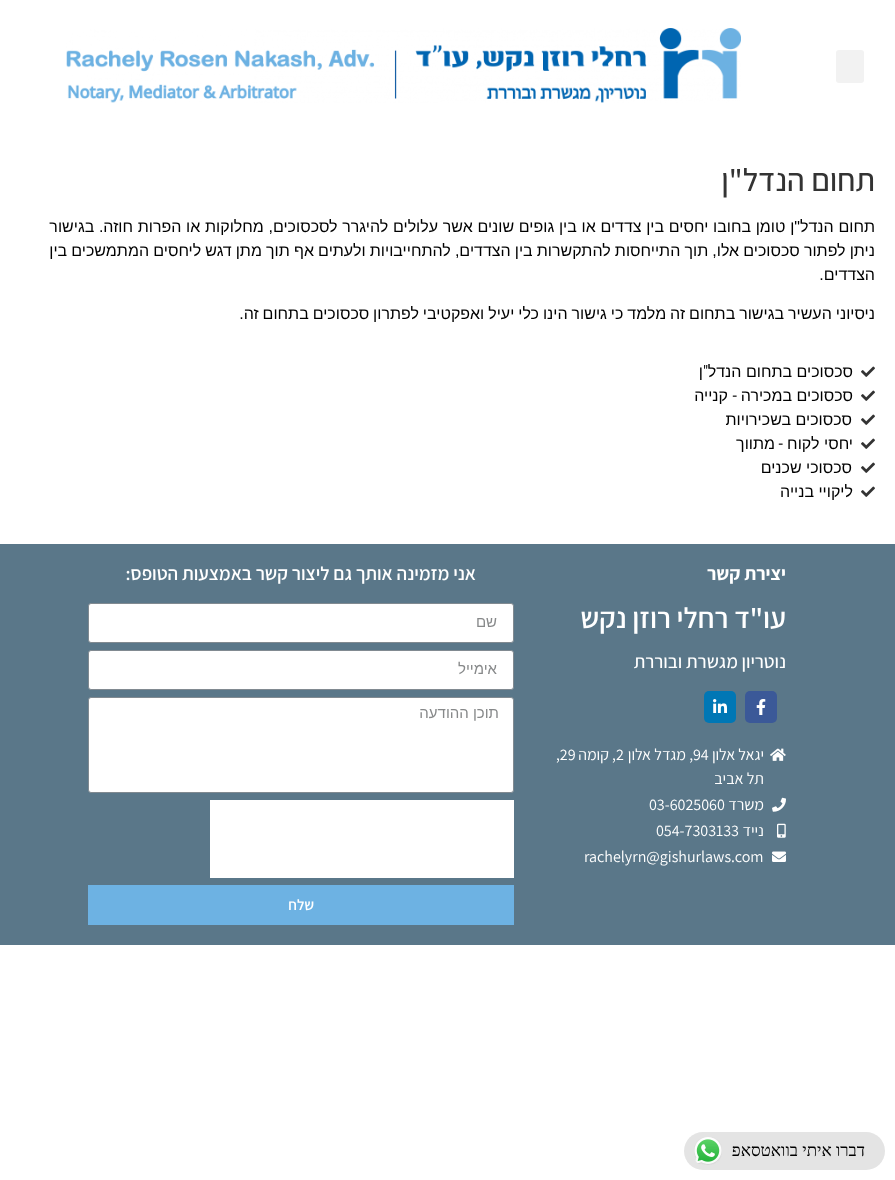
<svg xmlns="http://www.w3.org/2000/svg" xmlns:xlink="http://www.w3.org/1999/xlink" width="895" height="1180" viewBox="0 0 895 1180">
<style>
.cls-1{font:500 32px Assistant;direction:rtl;fill:#333333}
.cls-2{font:16px Liberation Sans;direction:rtl;fill:#000000}
.cls-3{font:16px Roboto;direction:rtl;fill:#000000}
.cls-4{font:bold 19px Assistant;direction:rtl;fill:#ffffff}
.cls-5{font:600 29px Assistant;direction:rtl;fill:#ffffff}
.cls-6{font:500 19px Assistant;direction:rtl;fill:#ffffff}
.cls-7{font:16px Assistant;direction:rtl;fill:#ffffff}
.cls-8{font:16px Assistant;fill:#ffffff}
.cls-9{font:600 19px Assistant;direction:rtl;fill:#ffffff}
.cls-10{font:15px Liberation Sans;direction:rtl;fill:#87898a}
.cls-11{font:600 15px Assistant;direction:rtl;fill:#ffffff}
.cls-12{font:17px Liberation Serif;direction:rtl;fill:#000000}
</style>
<rect width="100%" height="100%" fill="#ffffff"/>
<rect fill="#f2f2f2" x="836" y="50" width="28" height="33" rx="3"/>
<image xlink:href="image0.png" x="66" y="28" width="675" height="75"/>
<image xlink:href="image1.png" x="861" y="366" width="14" height="11"/>
<image xlink:href="image1.png" x="861" y="390" width="14" height="11"/>
<image xlink:href="image1.png" x="861" y="414" width="14" height="11"/>
<image xlink:href="image1.png" x="861" y="438" width="14" height="11"/>
<image xlink:href="image1.png" x="861" y="462" width="14" height="11"/>
<image xlink:href="image1.png" x="861" y="486" width="14" height="11"/>
<rect fill="#5a7789" x="0" y="544" width="895" height="401"/>
<rect fill="#3b5998" x="745" y="691" width="32" height="32" rx="5"/>
<image xlink:href="image2.png" x="756" y="699" width="10" height="16"/>
<rect fill="#0077b5" x="704" y="691" width="32" height="32" rx="5"/>
<image xlink:href="image3.png" x="713" y="699" width="14" height="14"/>
<image xlink:href="image4.png" x="770" y="748" width="16" height="13"/>
<image xlink:href="image5.png" x="772" y="797" width="14" height="15"/>
<image xlink:href="image6.png" x="777" y="823" width="9" height="15"/>
<image xlink:href="image7.png" x="772" y="851" width="14" height="11"/>
<rect fill="#ffffff" stroke="#818a91" x="88.5" y="603.5" width="425" height="39" rx="2.5"/>
<rect fill="#ffffff" stroke="#818a91" x="88.5" y="650.5" width="425" height="39" rx="2.5"/>
<rect fill="#ffffff" stroke="#818a91" x="88.5" y="697.5" width="425" height="95" rx="2.5"/>
<rect fill="#ffffff" x="210" y="800" width="304" height="78"/>
<rect fill="#6db2e3" x="88" y="885" width="426" height="40"/>
<rect fill="#e4e4e4" x="684" y="1132" width="201" height="38" rx="19"/>
<image xlink:href="image8.png" x="694" y="1137" width="28" height="28"/>
<text class="cls-1" x="875" y="191">תחום הנדל"ן</text>
<text class="cls-2"><tspan x="875" y="232" word-spacing="0.25">תחום הנדל"ן טומן בחובו יחסים בין צדדים או בין גופים שונים אשר עלולים להיגרר לסכסוכים, מחלוקות או הפרות חוזה. בגישור</tspan><tspan x="875" y="256" word-spacing="-0.3">ניתן לפתור סכסוכים אלו, תוך התייחסות להתקשרות בין הצדדים, להתחייבויות ולעתים אף תוך מתן דגש ליחסים המתמשכים בין</tspan><tspan x="875" y="280">הצדדים.</tspan></text>
<text class="cls-2" x="875" y="319" word-spacing="-0.5">ניסיוני העשיר בגישור בתחום זה מלמד כי גישור הינו כלי יעיל ואפקטיבי לפתרון סכסוכים בתחום זה.</text>
<text class="cls-2" x="853" y="377">סכסוכים בתחום הנדל</text>
<text class="cls-3" x="708" y="377">"</text>
<text class="cls-2" x="703" y="377">ן</text>
<text class="cls-2" x="853" y="401">סכסוכים במכירה</text>
<text class="cls-3" x="737" y="401">-</text>
<text class="cls-2" x="728" y="401">קנייה</text>
<text class="cls-2" x="852" y="425">סכסוכים בשכירויות</text>
<text class="cls-2" x="853" y="449">יחסי לקוח</text>
<text class="cls-3" x="783" y="449">-</text>
<text class="cls-2" x="775" y="449">מתווך</text>
<text class="cls-2" x="852" y="473">סכסוכי שכנים</text>
<text class="cls-2" x="853" y="497">ליקויי בנייה</text>
<text class="cls-4" x="786" y="580">יצירת קשר</text>
<text class="cls-5" x="786" y="628">עו"ד רחלי רוזן נקש</text>
<text class="cls-6" x="786" y="668">נוטריון מגשרת ובוררת</text>
<text class="cls-7" x="764" y="760">יגאל אלון</text>
<text class="cls-8" x="693" y="760">94</text>
<text class="cls-7" x="693" y="760">, מגדל אלון</text>
<text class="cls-8" x="616" y="760">2</text>
<text class="cls-7" x="616" y="760">, קומה</text>
<text class="cls-8" x="556" y="760">,29</text>
<text class="cls-7"><tspan x="764" y="784">תל אביב</tspan><tspan x="764" y="810">משרד</tspan></text>
<text class="cls-8" x="649" y="810">03-6025060</text>
<text class="cls-7" x="764" y="836">נייד</text>
<text class="cls-8" x="656" y="836">054-7303133</text>
<text class="cls-8" x="584" y="862">rachelyrn@gishurlaws.com</text>
<text class="cls-9" x="476" y="580">אני מזמינה אותך גם ליצור קשר באמצעות הטופס:</text>
<text class="cls-10" x="497" y="627">שם</text>
<text class="cls-10" x="497" y="674">אימייל</text>
<text class="cls-10" x="499" y="718">תוכן ההודעה</text>
<text class="cls-11" x="314" y="910">שלח</text>
<text class="cls-12" x="865" y="1156">דברו איתי בוואטסאפ</text>
</svg>
